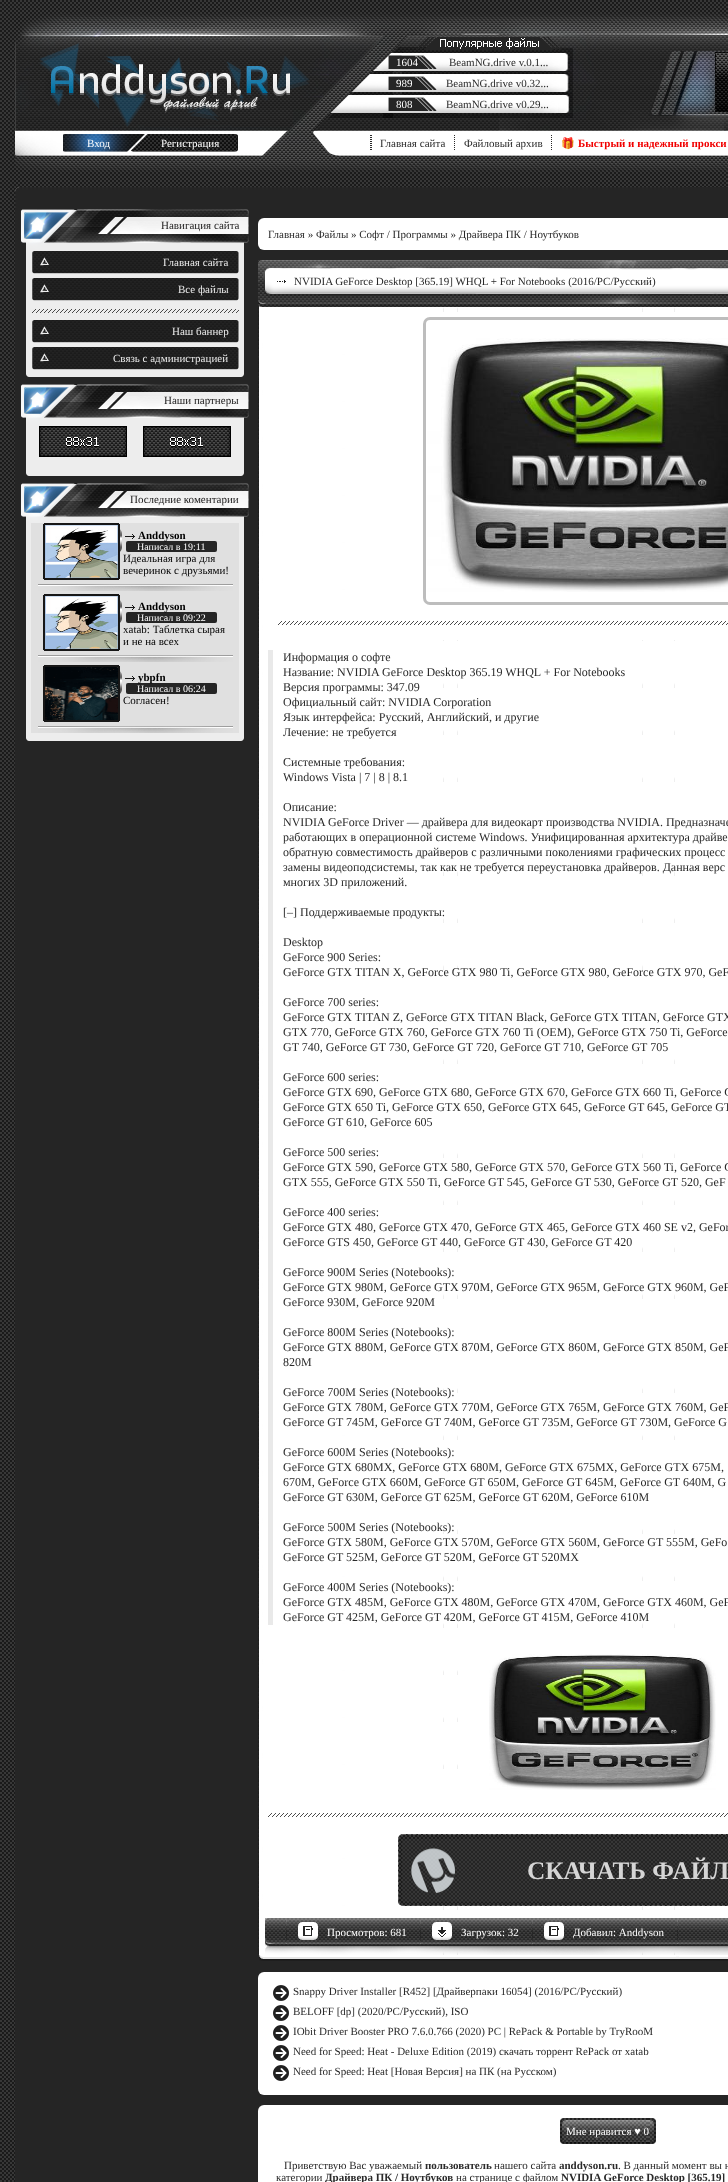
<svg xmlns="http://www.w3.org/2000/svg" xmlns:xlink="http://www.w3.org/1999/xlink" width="728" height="2182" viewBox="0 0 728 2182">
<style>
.cls-1{font:11px Liberation Serif;fill:#ffffff}
.cls-2{font:11px Liberation Serif;fill:#2a2a2a}
.cls-3{font:bold 11px Noto Color Emoji;fill:#f10000}
.cls-4{font:bold 11px Liberation Serif;fill:#f10000}
.cls-5{font:11px Liberation Serif;fill:#222121}
.cls-6{font:11px Liberation Serif;fill:#ececec}
.cls-7{font:bold 11px Liberation Serif;fill:#000000}
.cls-8{font:10px Liberation Serif;fill:#ffffff}
.cls-9{font:11px Liberation Serif;fill:#000000}
.cls-10{font:12px Liberation Serif;fill:#2a2a2a}
.cls-11{font:bold 25.25px Liberation Serif;fill:#d5d5d5}
.cls-12{font:bold 11px Liberation Serif;fill:#2a2a2a}
</style>
<rect width="100%" height="100%" fill="#ffffff"/>
<image xlink:href="image0.png" x="0" y="0" width="728" height="2182"/>
<image xlink:href="image1.png" x="15" y="13" width="713" height="159"/>
<image xlink:href="image2.png" x="63" y="134" width="82" height="18"/>
<image xlink:href="image3.png" x="131" y="134" width="107" height="18"/>
<image xlink:href="image4.png" x="370" y="135" width="85" height="15"/>
<image xlink:href="image5.png" x="551" y="135" width="1" height="15"/>
<image xlink:href="image6.png" x="15" y="187" width="713" height="22"/>
<rect fill="#252525" x="15" y="209" width="713" height="1973"/>
<image xlink:href="image7.png" x="21" y="209" width="228" height="40"/>
<path fill="#ededed" d="M26 249H244V374C244 375.5 242.5 377 241 377H29C27.5 377 26 375.5 26 374Z"/>
<image xlink:href="image8.png" x="32" y="251" width="207" height="23"/>
<image xlink:href="image8.png" x="32" y="278" width="207" height="23"/>
<image xlink:href="image9.png" x="32" y="309" width="207" height="4"/>
<image xlink:href="image8.png" x="32" y="320" width="207" height="23"/>
<image xlink:href="image8.png" x="32" y="347" width="207" height="23"/>
<image xlink:href="image7.png" x="21" y="384" width="228" height="40"/>
<path fill="#ededed" d="M26 424H244V473C244 474.5 242.5 476 241 476H29C27.5 476 26 474.5 26 473Z"/>
<image xlink:href="image10.png" x="39" y="426" width="88" height="31"/>
<image xlink:href="image10.png" x="143" y="426" width="88" height="31"/>
<image xlink:href="image7.png" x="21" y="483" width="228" height="40"/>
<path fill="#ededed" d="M26 523H244V738C244 739.5 242.5 741 241 741H29C27.5 741 26 739.5 26 738Z"/>
<rect fill="#e0e0e0" x="31" y="523" width="208" height="210"/>
<image xlink:href="image11.png" x="38" y="523" width="195" height="68"/>
<image xlink:href="image12.png" x="45" y="525" width="73" height="53"/>
<rect fill="#252525" x="126" y="541" width="91" height="11" rx="2"/>
<image xlink:href="image11.png" x="38" y="594" width="195" height="68"/>
<image xlink:href="image12.png" x="45" y="596" width="73" height="53"/>
<rect fill="#252525" x="126" y="612" width="91" height="11" rx="2"/>
<image xlink:href="image11.png" x="38" y="665" width="195" height="68"/>
<image xlink:href="image13.png" x="45" y="667" width="73" height="53"/>
<rect fill="#252525" x="126" y="683" width="91" height="11" rx="2"/>
<rect fill="#ffffff" x="258" y="218" width="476" height="32" rx="6"/>
<image xlink:href="image14.png" x="258" y="260" width="470" height="47"/>
<image xlink:href="image15.png" x="258" y="307" width="470" height="1648"/>
<rect fill="#ffffff" stroke="#bdbdbd" stroke-width="3" x="424.5" y="318.5" width="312" height="285" rx="5.5"/>
<image xlink:href="image16.png" x="427" y="321" width="301" height="271"/>
<rect fill="#ffffff" x="268" y="605" width="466" height="35" rx="6"/>
<image xlink:href="image17.png" x="278" y="621" width="450" height="4"/>
<rect fill="#e9e9e9" x="268" y="650" width="5" height="975"/>
<image xlink:href="image18.png" x="489" y="1654" width="227" height="136"/>
<image xlink:href="image19.png" x="268" y="1813" width="460" height="4"/>
<image xlink:href="image20.png" x="398" y="1834" width="330" height="72"/>
<path fill="none" stroke="#626262" stroke-dasharray="3 2" d="M403 1834.5H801C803.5 1834.5 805.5 1836.5 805.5 1839V1901C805.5 1903.5 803.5 1905.5 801 1905.5H403C400.5 1905.5 398.5 1903.5 398.5 1901V1839C398.5 1836.5 400.5 1834.5 403 1834.5Z"/>
<rect fill="#353535" fill-opacity="0.4" x="402" y="1839" width="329" height="63" rx="3"/>
<image xlink:href="image21.png" x="411" y="1848" width="44" height="45"/>
<image xlink:href="image22.png" x="265" y="1918" width="463" height="37"/>
<image xlink:href="image23.png" x="286" y="1920" width="1" height="24"/>
<image xlink:href="image24.png" x="298" y="1922" width="20" height="18"/>
<image xlink:href="image23.png" x="420" y="1920" width="1" height="24"/>
<image xlink:href="image25.png" x="432" y="1922" width="20" height="18"/>
<image xlink:href="image23.png" x="532" y="1920" width="1" height="24"/>
<image xlink:href="image26.png" x="544" y="1922" width="20" height="18"/>
<image xlink:href="image23.png" x="677" y="1920" width="1" height="24"/>
<image xlink:href="image27.png" x="259" y="1955" width="469" height="6"/>
<rect fill="#ffffff" x="258" y="1972" width="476" height="123" rx="6"/>
<image xlink:href="image28.png" x="273" y="1985" width="16" height="16"/>
<image xlink:href="image28.png" x="273" y="2005" width="16" height="16"/>
<image xlink:href="image28.png" x="273" y="2025" width="16" height="16"/>
<image xlink:href="image28.png" x="273" y="2045" width="16" height="16"/>
<image xlink:href="image28.png" x="273" y="2065" width="16" height="16"/>
<rect fill="#ffffff" x="258" y="2105" width="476" height="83" rx="6"/>
<image xlink:href="image29.png" x="560" y="2118" width="96" height="26"/>
<text class="cls-1" x="396" y="66">1604</text>
<text class="cls-2" x="449" y="66">BeamNG.drive v.0.1...</text>
<text class="cls-1" x="396" y="87">989</text>
<text class="cls-2" x="446" y="87">BeamNG.drive v0.32...</text>
<text class="cls-1" x="396" y="108">808</text>
<text class="cls-2" x="446" y="108">BeamNG.drive v0.29...</text>
<text class="cls-1" x="87" y="147">Вход</text>
<text class="cls-1" x="161" y="147">Регистрация</text>
<text class="cls-2" x="380" y="147">Главная сайта</text>
<text class="cls-2" x="464" y="147">Файловый архив</text>
<text class="cls-3" x="561" y="147">🎁</text>
<text class="cls-4" x="578" y="147">Быстрый и надежный прокси</text>
<text class="cls-5" x="161" y="229">Навигация сайта</text>
<text class="cls-6" x="163" y="266">Главная сайта</text>
<text class="cls-6" x="178" y="293">Все файлы</text>
<text class="cls-6" x="172" y="335">Наш баннер</text>
<text class="cls-6" x="113" y="362">Связь с администрацией</text>
<text class="cls-5" x="164" y="404">Наши партнеры</text>
<text class="cls-5" x="130" y="503">Последние коментарии</text>
<text class="cls-7" x="138" y="539">Anddyson</text>
<text class="cls-8" x="137" y="550">Написал в 19:11</text>
<text class="cls-9"><tspan x="123" y="562">Идеальная игра для</tspan><tspan x="123" y="574">вечеринок с друзьями!</tspan></text>
<text class="cls-7" x="138" y="610">Anddyson</text>
<text class="cls-8" x="137" y="621">Написал в 09:22</text>
<text class="cls-9"><tspan x="123" y="633">xatab: Таблетка сырая</tspan><tspan x="123" y="645">и не на всех</tspan></text>
<text class="cls-7" x="138" y="681">ybpfn</text>
<text class="cls-8" x="137" y="692">Написал в 06:24</text>
<text class="cls-9" x="123" y="704">Согласен!</text>
<text class="cls-2" x="268" y="238">Главная » Файлы » Софт / Программы » Драйвера ПК / Ноутбуков</text>
<text class="cls-2" x="294" y="285">NVIDIA GeForce Desktop [365.19] WHQL + For Notebooks (2016/РС/Русский)</text>
<text class="cls-10"><tspan x="283" y="661">Информация о софте</tspan><tspan x="283" y="676">Название: NVIDIA GeForce Desktop 365.19 WHQL + For Notebooks</tspan><tspan x="283" y="691">Версия программы: 347.09</tspan><tspan x="283" y="706">Официальный сайт: NVIDIA Corporation</tspan><tspan x="283" y="721">Язык интерфейса: Русский, Английский, и другие</tspan><tspan x="283" y="736">Лечение: не требуется</tspan></text>
<text class="cls-10"><tspan x="283" y="766">Системные требования:</tspan><tspan x="283" y="781">Windows Vista | 7 | 8 | 8.1</tspan></text>
<text class="cls-10"><tspan x="283" y="811">Описание:</tspan><tspan x="283" y="826">NVIDIA GeForce Driver — драйвера для видеокарт производства NVIDIA. Предназначе</tspan><tspan x="283" y="841">работающих в операционной системе Windows. Унифицированная архитектура драйве</tspan><tspan x="283" y="856">обратную совместимость драйверов с различными поколениями графических процесс</tspan><tspan x="283" y="871">замены видеоподсистемы, так как не требуется переустановка драйверов. Данная верс</tspan><tspan x="283" y="886">многих 3D приложений.</tspan></text>
<text class="cls-10" x="283" y="916">[–] Поддерживаемые продукты:</text>
<text class="cls-10"><tspan x="283" y="946">Desktop</tspan><tspan x="283" y="961">GeForce 900 Series:</tspan><tspan x="283" y="976">GeForce GTX TITAN X, GeForce GTX 980 Ti, GeForce GTX 980, GeForce GTX 970, GeF</tspan></text>
<text class="cls-10"><tspan x="283" y="1006">GeForce 700 series:</tspan><tspan x="283" y="1021">GeForce GTX TITAN Z, GeForce GTX TITAN Black, GeForce GTX TITAN, GeForce GTX</tspan><tspan x="283" y="1036">GTX 770, GeForce GTX 760, GeForce GTX 760 Ti (OEM), GeForce GTX 750 Ti, GeForce</tspan><tspan x="283" y="1051">GT 740, GeForce GT 730, GeForce GT 720, GeForce GT 710, GeForce GT 705</tspan></text>
<text class="cls-10"><tspan x="283" y="1081">GeForce 600 series:</tspan><tspan x="283" y="1096">GeForce GTX 690, GeForce GTX 680, GeForce GTX 670, GeForce GTX 660 Ti, GeForce G</tspan><tspan x="283" y="1111">GeForce GTX 650 Ti, GeForce GTX 650, GeForce GTX 645, GeForce GT 645, GeForce GT</tspan><tspan x="283" y="1126">GeForce GT 610, GeForce 605</tspan></text>
<text class="cls-10"><tspan x="283" y="1156">GeForce 500 series:</tspan><tspan x="283" y="1171">GeForce GTX 590, GeForce GTX 580, GeForce GTX 570, GeForce GTX 560 Ti, GeForce G</tspan><tspan x="283" y="1186">GTX 555, GeForce GTX 550 Ti, GeForce GT 545, GeForce GT 530, GeForce GT 520, GeF</tspan></text>
<text class="cls-10"><tspan x="283" y="1216">GeForce 400 series:</tspan><tspan x="283" y="1231">GeForce GTX 480, GeForce GTX 470, GeForce GTX 465, GeForce GTX 460 SE v2, GeFor</tspan><tspan x="283" y="1246">GeForce GTS 450, GeForce GT 440, GeForce GT 430, GeForce GT 420</tspan></text>
<text class="cls-10"><tspan x="283" y="1276">GeForce 900M Series (Notebooks):</tspan><tspan x="283" y="1291">GeForce GTX 980M, GeForce GTX 970M, GeForce GTX 965M, GeForce GTX 960M, GeF</tspan><tspan x="283" y="1306">GeForce 930M, GeForce 920M</tspan></text>
<text class="cls-10"><tspan x="283" y="1336">GeForce 800M Series (Notebooks):</tspan><tspan x="283" y="1351">GeForce GTX 880M, GeForce GTX 870M, GeForce GTX 860M, GeForce GTX 850M, GeF</tspan><tspan x="283" y="1366">820M</tspan></text>
<text class="cls-10"><tspan x="283" y="1396">GeForce 700M Series (Notebooks):</tspan><tspan x="283" y="1411">GeForce GTX 780M, GeForce GTX 770M, GeForce GTX 765M, GeForce GTX 760M, GeF</tspan><tspan x="283" y="1426">GeForce GT 745M, GeForce GT 740M, GeForce GT 735M, GeForce GT 730M, GeForce G</tspan></text>
<text class="cls-10"><tspan x="283" y="1456">GeForce 600M Series (Notebooks):</tspan><tspan x="283" y="1471">GeForce GTX 680MX, GeForce GTX 680M, GeForce GTX 675MX, GeForce GTX 675M,</tspan><tspan x="283" y="1486">670M, GeForce GTX 660M, GeForce GT 650M, GeForce GT 645M, GeForce GT 640M, G</tspan><tspan x="283" y="1501">GeForce GT 630M, GeForce GT 625M, GeForce GT 620M, GeForce 610M</tspan></text>
<text class="cls-10"><tspan x="283" y="1531">GeForce 500M Series (Notebooks):</tspan><tspan x="283" y="1546">GeForce GTX 580M, GeForce GTX 570M, GeForce GTX 560M, GeForce GT 555M, GeFo</tspan><tspan x="283" y="1561">GeForce GT 525M, GeForce GT 520M, GeForce GT 520MX</tspan></text>
<text class="cls-10"><tspan x="283" y="1591">GeForce 400M Series (Notebooks):</tspan><tspan x="283" y="1606">GeForce GTX 485M, GeForce GTX 480M, GeForce GTX 470M, GeForce GTX 460M, GeF</tspan><tspan x="283" y="1621">GeForce GT 425M, GeForce GT 420M, GeForce GT 415M, GeForce 410M</tspan></text>
<text class="cls-11" x="527" y="1879">СКАЧАТЬ ФАЙЛ</text>
<text class="cls-1" x="327" y="1936">Просмотров: 681</text>
<text class="cls-1" x="461" y="1936">Загрузок: 32</text>
<text class="cls-1" x="573" y="1936">Добавил: Anddyson</text>
<text class="cls-2"><tspan x="293" y="1995">Snappy Driver Installer [R452] [Драйверпаки 16054] (2016/РС/Русский)</tspan><tspan x="293" y="2015">BELOFF [dp] (2020/PC/Русский), ISO</tspan><tspan x="293" y="2035">IObit Driver Booster PRO 7.6.0.766 (2020) PC | RePack &amp; Portable by TryRooM</tspan><tspan x="293" y="2055">Need for Speed: Heat - Deluxe Edition (2019) скачать торрент RePack от xatab</tspan><tspan x="293" y="2075">Need for Speed: Heat [Новая Версия] на ПК (на Русском)</tspan></text>
<text class="cls-1" x="566" y="2135">Мне нравится ♥ 0</text>
<text class="cls-2" x="284" y="2169">Приветствую Вас уважаемый</text>
<text class="cls-12" x="425" y="2169">пользователь</text>
<text class="cls-2" x="494" y="2169">нашего сайта</text>
<text class="cls-12" x="559" y="2169">anddyson.ru</text>
<text class="cls-2" x="618" y="2169">. В данный момент вы н</text>
<text class="cls-2" x="276" y="2181">категории</text>
<text class="cls-12" x="325" y="2181">Драйвера ПК / Ноутбуков</text>
<text class="cls-2" x="456" y="2181">на странице с файлом</text>
<text class="cls-12" x="561" y="2181">NVIDIA GeForce Desktop [365.19]</text>
</svg>
